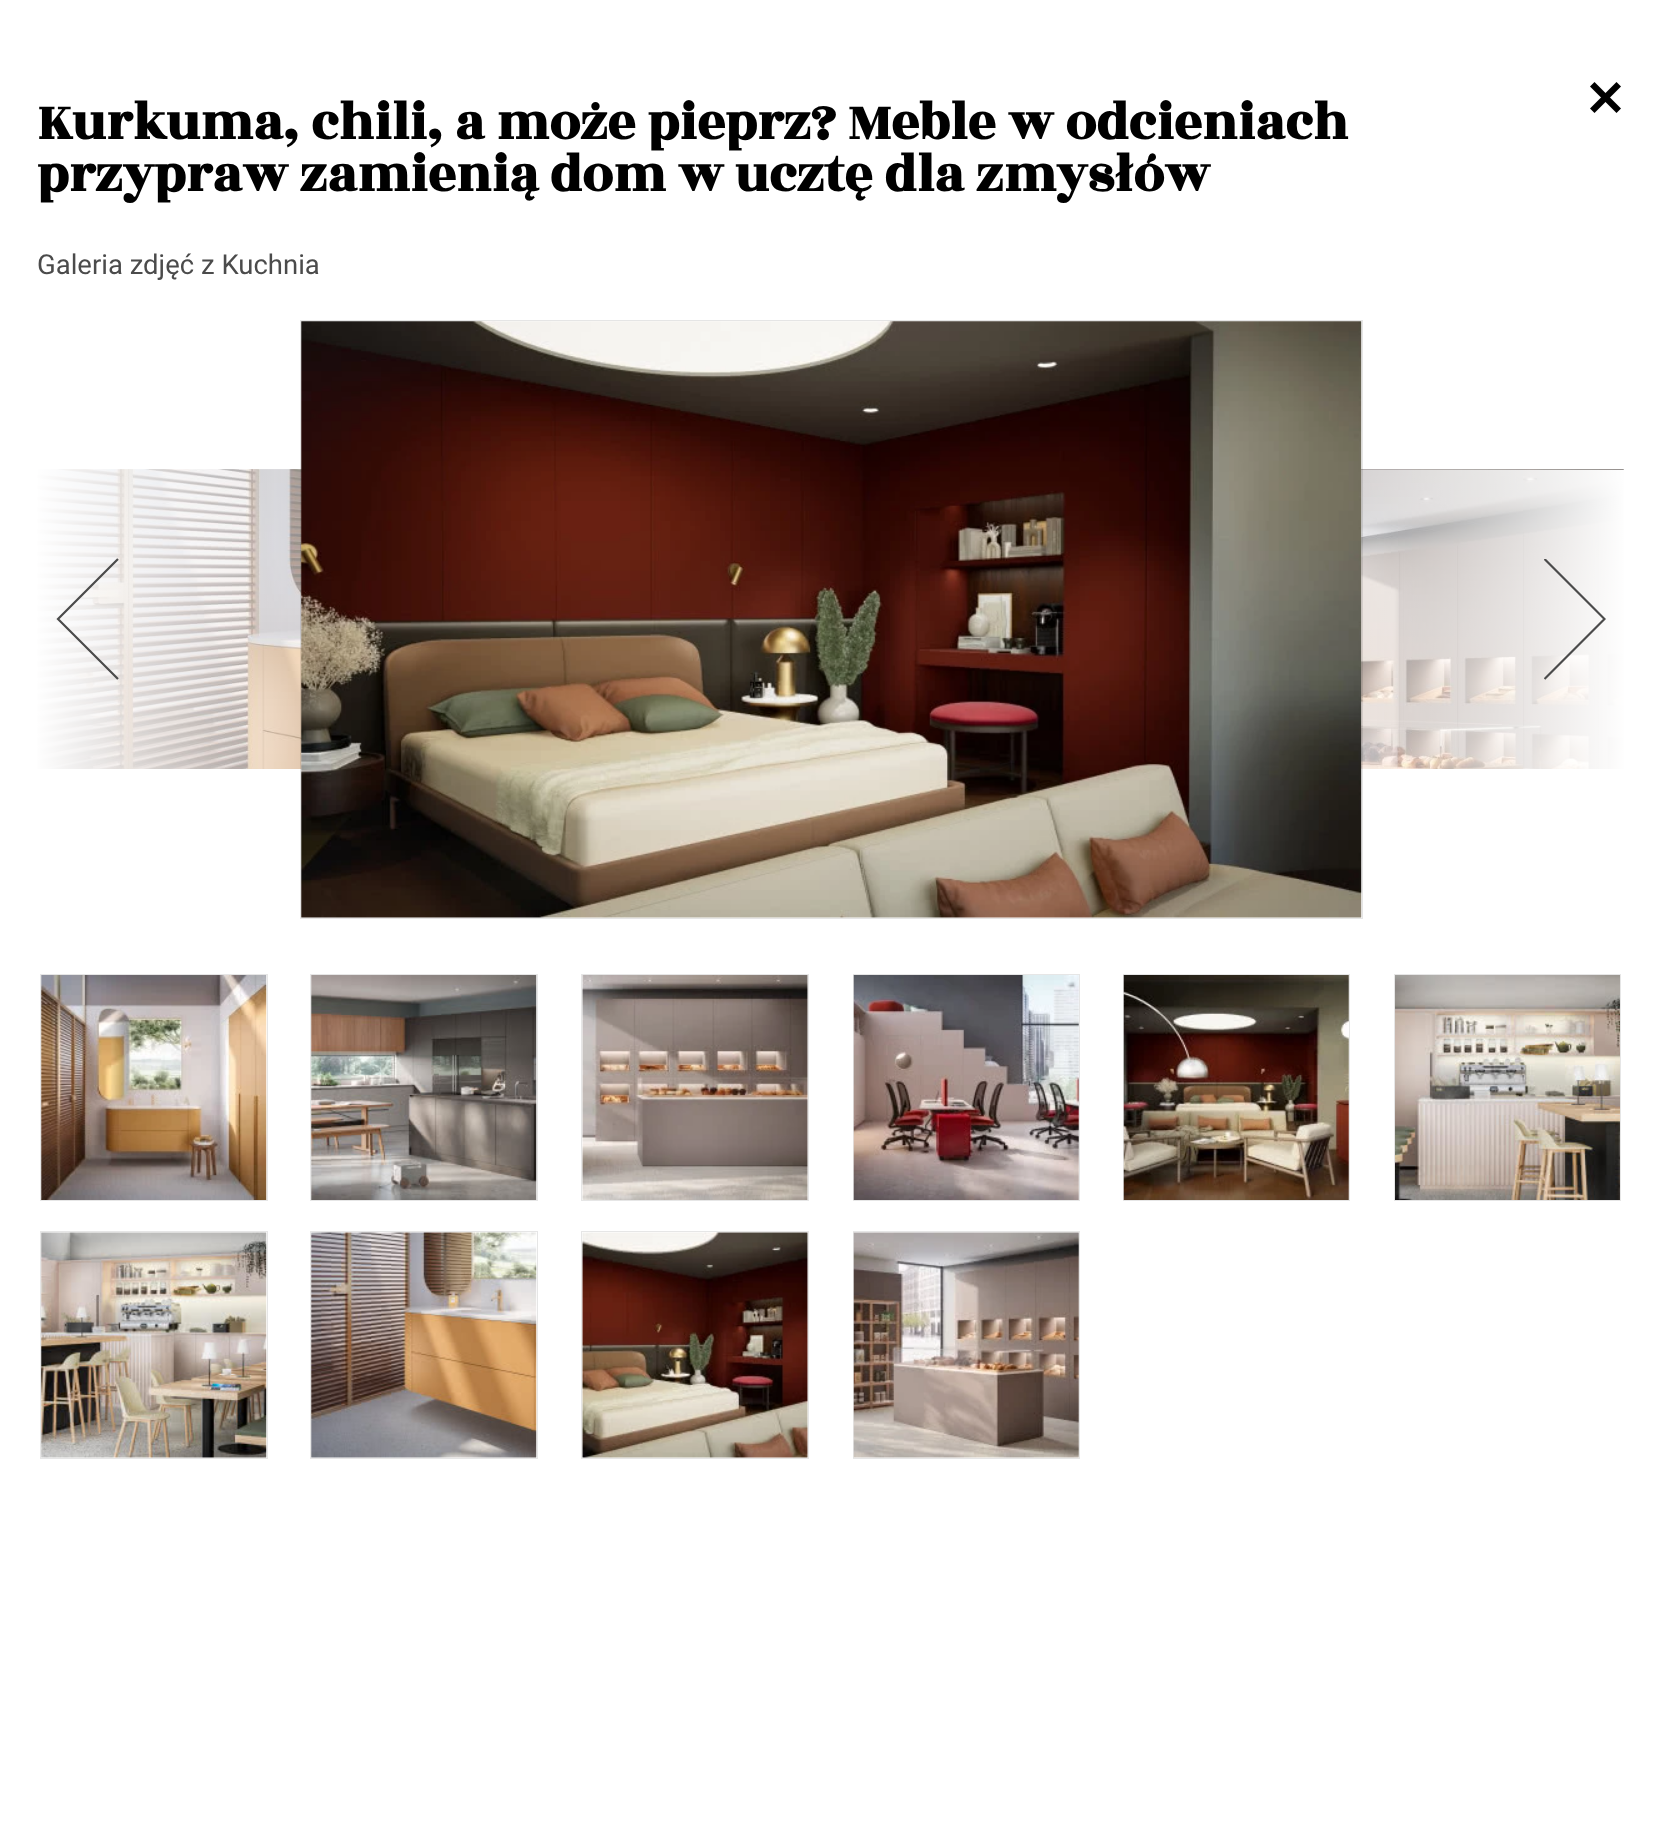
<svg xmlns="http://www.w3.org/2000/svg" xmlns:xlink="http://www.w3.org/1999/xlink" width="1661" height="1846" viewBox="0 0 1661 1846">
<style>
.cls-1{font:bold 55px Rozha One;fill:#000000}
.cls-2{font:27.5px Roboto;fill:#4b4b4b}
</style>
<defs>
<linearGradient id="g1" gradientUnits="userSpaceOnUse" x1="34" y1="715" x2="576" y2="715"><stop offset="0" stop-color="#ffffff"/><stop offset="1" stop-color="#ffffff" stop-opacity="0"/></linearGradient>
<linearGradient id="g2" gradientUnits="userSpaceOnUse" x1="1627" y1="716" x2="1085" y2="716"><stop offset="0" stop-color="#ffffff"/><stop offset="1" stop-color="#ffffff" stop-opacity="0"/></linearGradient>
<clipPath id="clip1"><rect x="1544" y="559" width="62" height="121"/></clipPath>
</defs>
<rect width="100%" height="100%" fill="#ffffff"/>
<path fill="#000000" d="M1594.5 82L1621 108.5L1616.5 113L1590 86.5Z"/>
<path fill="#000000" d="M1590 108.5L1616.5 82L1621 86.5L1594.5 113Z"/>
<image xlink:href="image1.png" x="37" y="469" width="265" height="300"/>
<rect fill="url(#g1)" x="37" y="469" width="265" height="300"/>
<image xlink:href="image2.png" x="1361" y="469" width="263" height="300"/>
<rect fill="url(#g2)" x="1361" y="470" width="263" height="299"/>
<rect fill="none" stroke="#000000" stroke-opacity="0.1" x="300.5" y="320.5" width="1062" height="598"/>
<image xlink:href="image0.png" x="301" y="321" width="1061" height="597"/>
<path fill="none" stroke="#4b4b4b" stroke-width="2.2" d="M118 559L58 619L118 679"/>
<g clip-path="url(#clip1)">
<path fill="none" stroke="#4b4b4b" stroke-width="2.2" d="M1544.5 679L1604.5 619L1544.5 559"/>
</g>
<rect fill="none" stroke="#e6e6e6" x="40.5" y="974.5" width="227" height="226"/>
<image xlink:href="image3.png" x="41" y="975" width="226" height="225"/>
<rect fill="none" stroke="#e6e6e6" x="310.5" y="974.5" width="227" height="226"/>
<image xlink:href="image4.png" x="311" y="975" width="226" height="225"/>
<rect fill="none" stroke="#e6e6e6" x="581.5" y="974.5" width="227" height="226"/>
<image xlink:href="image5.png" x="582" y="975" width="226" height="225"/>
<rect fill="none" stroke="#e6e6e6" x="853.5" y="974.5" width="226" height="226"/>
<image xlink:href="image6.png" x="853" y="975" width="226" height="225"/>
<rect fill="none" stroke="#e6e6e6" x="1123.5" y="974.5" width="226" height="226"/>
<image xlink:href="image7.png" x="1123" y="975" width="226" height="225"/>
<rect fill="none" stroke="#e6e6e6" x="1394.5" y="974.5" width="226" height="226"/>
<image xlink:href="image8.png" x="1395" y="975" width="225" height="225"/>
<rect fill="none" stroke="#e6e6e6" x="40.5" y="1231.5" width="227" height="227"/>
<image xlink:href="image9.png" x="41" y="1232" width="226" height="226"/>
<rect fill="none" stroke="#e6e6e6" x="310.5" y="1231.5" width="227" height="227"/>
<image xlink:href="image10.png" x="311" y="1232" width="226" height="226"/>
<rect fill="none" stroke="#e6e6e6" x="581.5" y="1231.5" width="227" height="227"/>
<image xlink:href="image11.png" x="582" y="1232" width="226" height="226"/>
<rect fill="none" stroke="#e6e6e6" x="853.5" y="1231.5" width="226" height="227"/>
<image xlink:href="image12.png" x="853" y="1232" width="226" height="226"/>
<text class="cls-1"><tspan x="37" y="139">Kurkuma, chili, a może pieprz? Meble w odcieniach</tspan><tspan x="37" y="191">przypraw zamienią dom w ucztę dla zmysłów</tspan></text>
<text class="cls-2" x="37" y="274">Galeria zdjęć z Kuchnia</text>
</svg>
